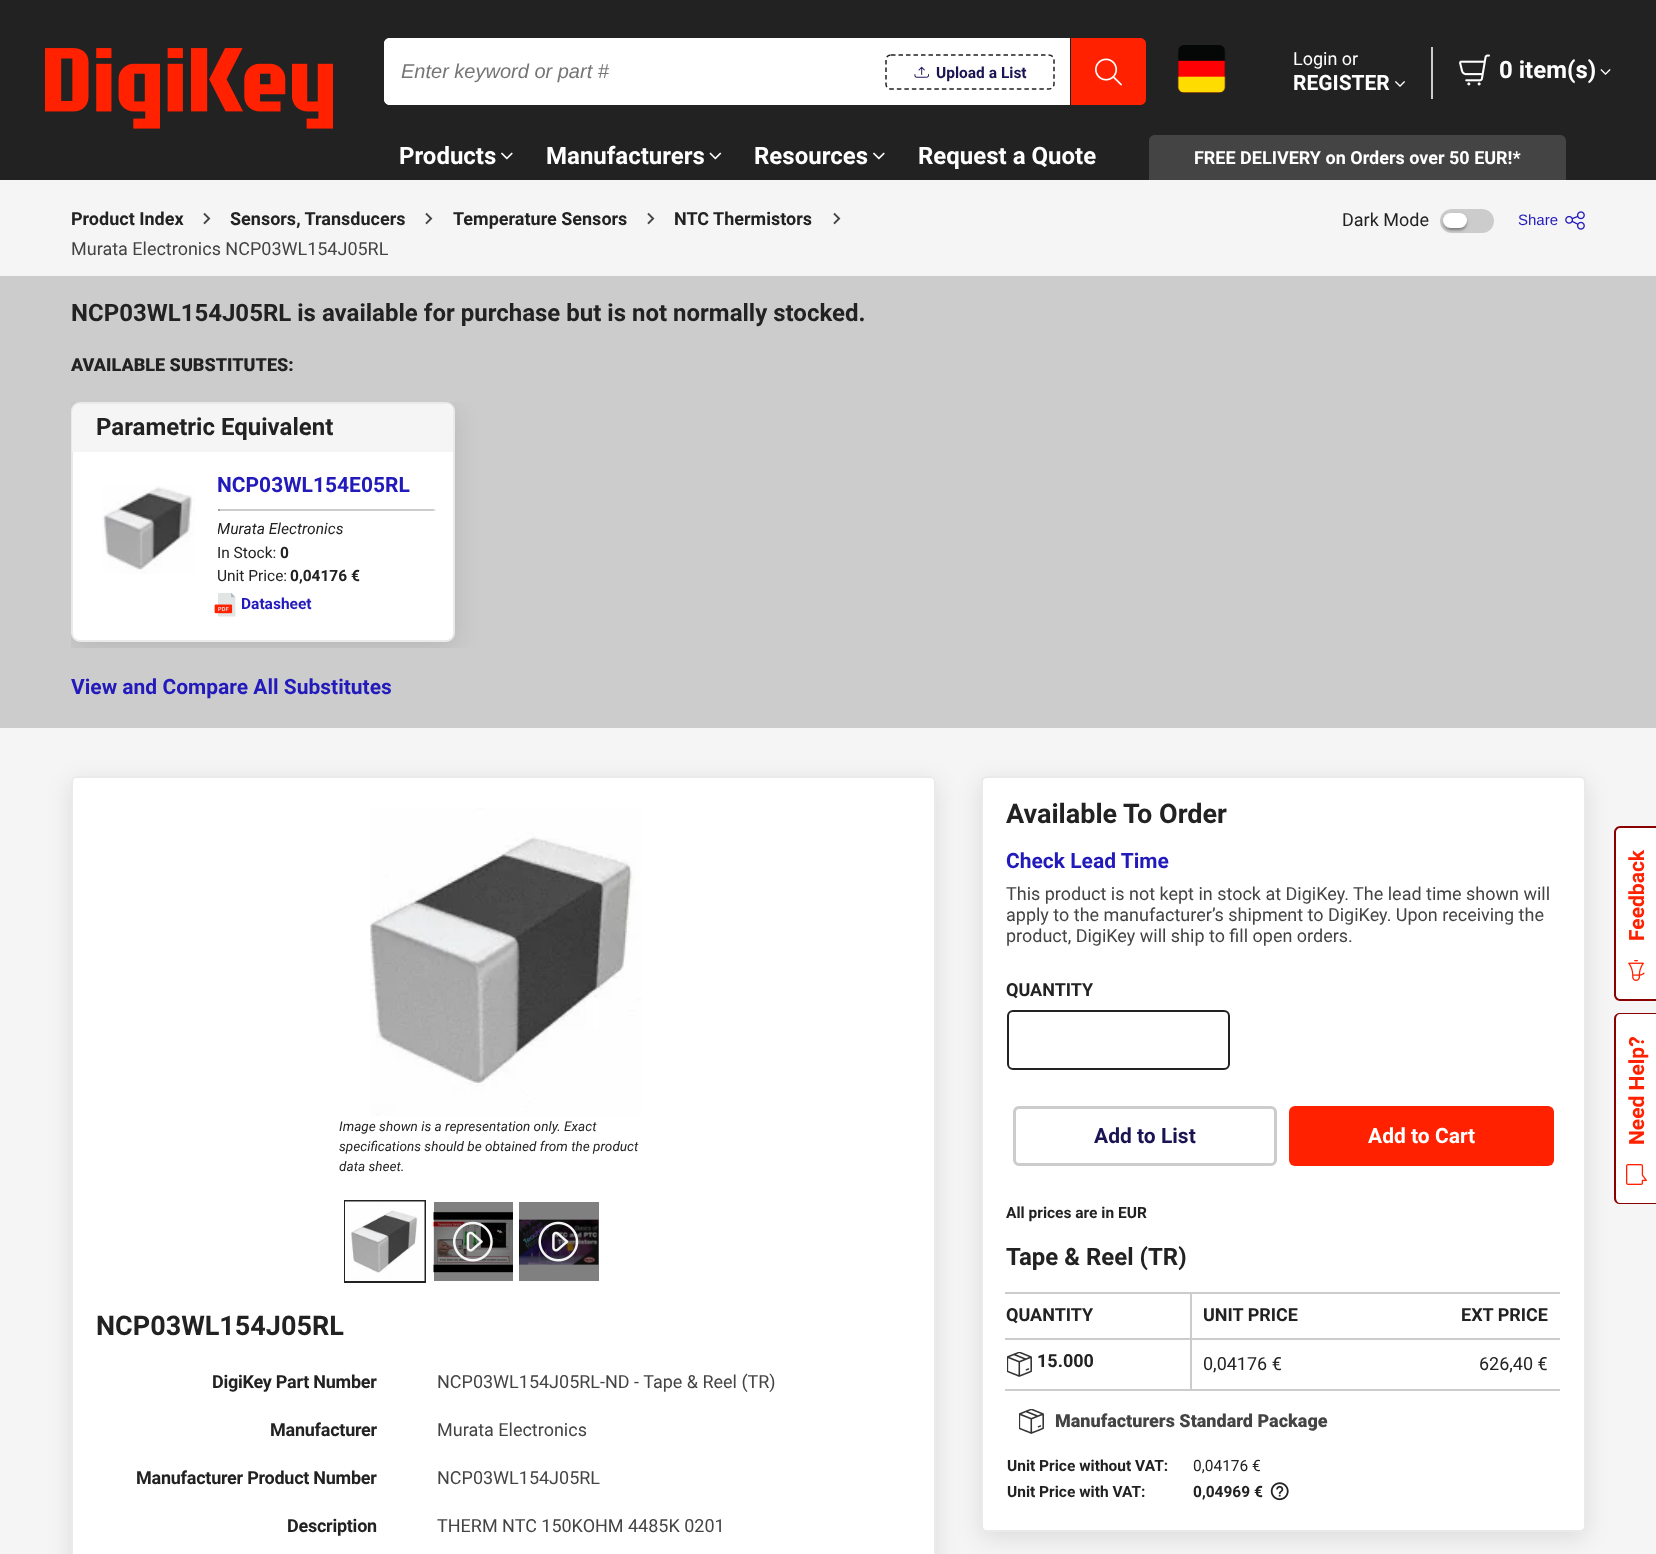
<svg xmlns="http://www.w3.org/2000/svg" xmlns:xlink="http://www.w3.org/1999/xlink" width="1656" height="1554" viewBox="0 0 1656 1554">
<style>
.cls-1{font:italic 20px Liberation Sans;fill:#757575}
.cls-2{font:bold 15.5px Roboto;fill:#1a1552}
.cls-3{font:18px Roboto;fill:#ffffff}
.cls-4{font:bold 21px Roboto;fill:#ffffff}
.cls-5{font:bold 24px Roboto;fill:#ffffff}
.cls-6{font:bold 18px Roboto;fill:#ffffff}
.cls-7{font:bold 18px Roboto;fill:#222222}
.cls-8{font:18px Roboto;fill:#444444}
.cls-9{font:18px Roboto;fill:#222222}
.cls-10{font:15px Liberation Sans;fill:#221abb}
.cls-11{font:bold 24px Roboto;fill:#222222}
.cls-12{font:900 18px Roboto;fill:#222222}
.cls-13{font:bold 21px Roboto;fill:#221abb}
.cls-14{font:italic 15.5px Roboto;fill:#222222}
.cls-15{font:15.5px Roboto;fill:#222222}
.cls-16{font:bold 15.5px Roboto;fill:#222222}
.cls-17{font:bold 15.5px Roboto;fill:#221abb}
.cls-18{font:italic 13.5px Roboto;fill:#222222}
.cls-19{font:bold 27px Roboto;fill:#222222}
.cls-20{font:bold 18px Roboto;letter-spacing:-0.25px;fill:#222222}
.cls-21{font:bold 21px Roboto;fill:#1a1552}
.cls-22{font:900 18px Roboto;fill:#444444}
.cls-23{font:bold 21px Roboto;fill:#ff2100}
</style>
<defs>
<clipPath id="clip1"><rect x="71" y="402" width="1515" height="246"/></clipPath>
<clipPath id="clip2"><rect x="218" y="518" width="217" height="24"/></clipPath>
</defs>
<rect width="100%" height="100%" fill="#f5f5f5"/>
<rect fill="#222222" x="0" y="0" width="1656" height="180"/>
<image xlink:href="image0.png" x="45" y="48" width="288" height="81"/>
<path fill="#ffffff" d="M390 38H1070V105H390C386.5 105 384 102.5 384 99V44C384 40.5 386.5 38 390 38Z"/>
<path fill="#ffffff" fill-rule="evenodd" d="M390 38H1070V105H390C387 105 384 102 384 99V44C384 40 387 38 390 38ZM390 39H1070V104H390C388 104 386 101 386 99V44C386 41 388 39 390 39Z"/>
<path fill="none" stroke="#222222" stroke-width="1.5" stroke-dasharray="4.5 3" d="M891 55H1048.5C1051.5 55 1054 57 1054 60V84C1054 87 1051.5 89 1048.5 89H891C888 89 886 87 886 84V60C886 57 888 55 891 55Z"/>
<image xlink:href="image1.png" x="914" y="66" width="15" height="12"/>
<path fill="#ff2100" d="M1071 38H1140C1143.5 38 1146 40.5 1146 44V99C1146 102.5 1143.5 105 1140 105H1071Z"/>
<image xlink:href="image2.png" x="1095" y="58" width="27" height="28"/>
<image xlink:href="image3.png" x="1177" y="45" width="49" height="48"/>
<image xlink:href="image4.png" x="1395" y="81" width="10" height="6"/>
<rect fill="#cccccc" x="1431" y="47" width="2" height="52"/>
<image xlink:href="image5.png" x="1459" y="54" width="31" height="32"/>
<image xlink:href="image6.png" x="1600" y="69" width="11" height="6"/>
<image xlink:href="image7.png" x="501" y="152" width="12" height="8"/>
<image xlink:href="image8.png" x="709" y="152" width="13" height="8"/>
<image xlink:href="image7.png" x="873" y="152" width="12" height="8"/>
<path fill="#444444" d="M1155 135H1560C1563.5 135 1566 137.5 1566 141V180H1149V141C1149 137.5 1151.5 135 1155 135Z"/>
<image xlink:href="image9.png" x="203" y="212" width="8" height="13"/>
<image xlink:href="image9.png" x="425" y="212" width="8" height="13"/>
<image xlink:href="image9.png" x="647" y="212" width="8" height="13"/>
<image xlink:href="image9.png" x="833" y="212" width="8" height="13"/>
<rect fill="#cccccc" x="1440" y="209" width="54" height="24" rx="12"/>
<rect fill="#000000" fill-opacity="0.12" filter="blur(2px)" x="1443" y="215" width="24" height="15" rx="7.5"/>
<rect fill="#000000" fill-opacity="0.14" filter="blur(1px)" x="1443" y="215" width="24" height="15" rx="7.5"/>
<rect fill="#000000" fill-opacity="0.2" filter="blur(1px)" x="1445" y="218" width="21" height="12" rx="6"/>
<rect fill="#ffffff" x="1443" y="213" width="24" height="15" rx="7.5"/>
<image xlink:href="image10.png" x="1565" y="211" width="20" height="19"/>
<rect fill="#cccccc" x="0" y="276" width="1656" height="452"/>
<g clip-path="url(#clip1)">
<rect fill="#000000" fill-opacity="0.1" filter="blur(12px)" x="71" y="408" width="384" height="240" rx="9"/>
</g>
<rect fill="#ffffff" stroke="#eaeaea" stroke-width="2" x="72" y="403" width="382" height="238" rx="8"/>
<path fill="#f5f5f5" d="M81 404H444C449 404 453 408 453 413V452H72V413C72 408 76 404 81 404Z"/>
<image xlink:href="image11.png" x="102" y="486" width="93" height="88"/>
<rect fill="#cccccc" x="218" y="509" width="217" height="2"/>
<rect fill="#eeeeee" x="434" y="509" width="2" height="2"/>
<rect fill="#9f9f9f" x="218" y="509" width="2" height="2"/>
<image xlink:href="image12.png" x="214" y="593" width="22" height="24"/>
<rect fill="#000000" fill-opacity="0.1" filter="blur(12px)" x="71" y="782" width="865" height="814" rx="6"/>
<rect fill="#ffffff" x="71" y="776" width="865" height="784" rx="6"/>
<rect fill="#808080" x="519" y="1202" width="80" height="79"/>
<rect fill="#808080" x="434" y="1202" width="79" height="79"/>
<rect fill="none" stroke="#eaeaea" stroke-width="2" x="72" y="777" width="863" height="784" rx="5"/>
<image xlink:href="image13.png" x="370" y="808" width="272" height="308"/>
<rect fill="none" stroke="#222222" stroke-width="2" x="345" y="1201" width="80" height="81"/>
<image xlink:href="image14.png" x="345" y="1201" width="80" height="80"/>
<image xlink:href="image15.png" x="433" y="1212" width="80" height="61"/>
<image xlink:href="image16.png" x="453" y="1221" width="40" height="41"/>
<image xlink:href="image17.png" x="519" y="1219" width="80" height="46"/>
<image xlink:href="image18.png" x="538" y="1221" width="41" height="41"/>
<rect fill="#000000" fill-opacity="0.1" filter="blur(12px)" x="981" y="782" width="605" height="756" rx="6"/>
<rect fill="#ffffff" stroke="#eaeaea" stroke-width="2" x="982" y="777" width="603" height="754" rx="5"/>
<rect fill="none" stroke="#222222" stroke-width="2" x="1008" y="1011" width="221" height="58" rx="5"/>
<rect fill="none" stroke="#cccccc" stroke-width="3" x="1014.5" y="1107.5" width="261" height="57" rx="4.5"/>
<rect fill="#ff2100" x="1289" y="1106" width="265" height="60" rx="6"/>
<rect fill="#cccccc" x="1005" y="1292" width="555" height="2"/>
<rect fill="#cccccc" x="1005" y="1338" width="555" height="2"/>
<image xlink:href="image19.png" x="1007" y="1352" width="25" height="25"/>
<rect fill="#cccccc" x="1005" y="1389" width="555" height="2"/>
<rect fill="#cccccc" x="1190" y="1292" width="2" height="99"/>
<image xlink:href="image19.png" x="1019" y="1409" width="25" height="25"/>
<image xlink:href="image20.png" x="1270" y="1482" width="19" height="19"/>
<path fill="#ffffff" d="M1614 995V832C1614 829 1617 826 1620 826H1656V1001H1620C1617 1001 1614 998 1614 995Z"/>
<path fill="#8b0000" fill-rule="evenodd" d="M1614 995V832C1614 829 1617 826 1620 826H1656V1001H1620C1617 1001 1614 998 1614 995ZM1616 995V832C1616 830 1618 828 1620 828H1656V999H1620C1618 999 1616 997 1616 995Z"/>
<image xlink:href="image21.png" x="1628" y="960" width="17" height="21"/>
<path fill="#ffffff" d="M1614 1198V1019C1614 1015 1617 1013 1620 1013H1656V1204H1620C1617 1204 1614 1202 1614 1198Z"/>
<path fill="#8b0000" fill-rule="evenodd" d="M1614 1198V1019C1614 1015 1617 1013 1620 1013H1656V1204H1620C1617 1204 1614 1202 1614 1198ZM1616 1198V1019C1616 1016 1618 1014 1620 1014H1656V1203H1620C1618 1203 1616 1201 1616 1198Z"/>
<image xlink:href="image22.png" x="1626" y="1164" width="21" height="21"/>
<text class="cls-1" x="401" y="78">Enter keyword or part #</text>
<text class="cls-2" x="936" y="78">Upload a List</text>
<text class="cls-3" x="1293" y="65">Login or</text>
<text class="cls-4" x="1293" y="90">REGISTER</text>
<text class="cls-5" x="1499" y="78">0 item(s)</text>
<text class="cls-5" x="399" y="164">Products</text>
<text class="cls-5" x="546" y="164">Manufacturers</text>
<text class="cls-5" x="754" y="164">Resources</text>
<text class="cls-5" x="918" y="164">Request a Quote</text>
<text class="cls-6" x="1194" y="164">FREE DELIVERY on Orders over 50 EUR!*</text>
<text class="cls-7" x="71" y="225">Product Index</text>
<text class="cls-7" x="230" y="225">Sensors, Transducers</text>
<text class="cls-7" x="453" y="225">Temperature Sensors</text>
<text class="cls-7" x="674" y="225">NTC Thermistors</text>
<text class="cls-8" x="71" y="255">Murata Electronics NCP03WL154J05RL</text>
<text class="cls-9" x="1342" y="226">Dark Mode</text>
<text class="cls-10" x="1518" y="225">Share</text>
<text class="cls-11" x="71" y="321">NCP03WL154J05RL is available for purchase but is not normally stocked.</text>
<text class="cls-12" x="71" y="371">AVAILABLE SUBSTITUTES:</text>
<text class="cls-11" x="96" y="435">Parametric Equivalent</text>
<text class="cls-13" x="217" y="492">NCP03WL154E05RL</text>
<g clip-path="url(#clip2)">
<text class="cls-14" x="217" y="534">Murata Electronics</text>
</g>
<text class="cls-15" x="217" y="558">In Stock:</text>
<text class="cls-16" x="280" y="558">0</text>
<text class="cls-15" x="217" y="581">Unit Price:</text>
<text class="cls-16" x="290" y="581">0,04176 €</text>
<text class="cls-17" x="241" y="609">Datasheet</text>
<text class="cls-13" x="71" y="694">View and Compare All Substitutes</text>
<text class="cls-18"><tspan x="339" y="1131">Image shown is a representation only. Exact</tspan><tspan x="339" y="1151">specifications should be obtained from the product</tspan><tspan x="339" y="1171">data sheet.</tspan></text>
<text class="cls-19" x="96" y="1335">NCP03WL154J05RL</text>
<text class="cls-20" x="212" y="1388">DigiKey Part Number</text>
<text class="cls-8" x="437" y="1388">NCP03WL154J05RL-ND - Tape &amp; Reel (TR)</text>
<text class="cls-20" x="270" y="1436">Manufacturer</text>
<text class="cls-8" x="437" y="1436">Murata Electronics</text>
<text class="cls-20" x="136" y="1484">Manufacturer Product Number</text>
<text class="cls-8" x="437" y="1484">NCP03WL154J05RL</text>
<text class="cls-20" x="287" y="1532">Description</text>
<text class="cls-8" x="437" y="1532">THERM NTC 150KOHM 4485K 0201</text>
<text class="cls-19" x="1006" y="823">Available To Order</text>
<text class="cls-13" x="1006" y="868">Check Lead Time</text>
<text class="cls-8"><tspan x="1006" y="900">This product is not kept in stock at DigiKey. The lead time shown will</tspan><tspan x="1006" y="921">apply to the manufacturer’s shipment to DigiKey. Upon receiving the</tspan><tspan x="1006" y="942">product, DigiKey will ship to fill open orders.</tspan></text>
<text class="cls-7" x="1006" y="996">QUANTITY</text>
<text class="cls-21" x="1094" y="1143">Add to List</text>
<text class="cls-4" x="1368" y="1143">Add to Cart</text>
<text class="cls-16" x="1006" y="1218">All prices are in EUR</text>
<text class="cls-11" x="1006" y="1265">Tape &amp; Reel (TR)</text>
<text class="cls-7" x="1006" y="1321">QUANTITY</text>
<text class="cls-7" x="1203" y="1321">UNIT PRICE</text>
<text class="cls-7" x="1461" y="1321">EXT PRICE</text>
<text class="cls-7" x="1037" y="1367">15.000</text>
<text class="cls-9" x="1203" y="1370">0,04176 €</text>
<text class="cls-9" x="1479" y="1370">626,40 €</text>
<text class="cls-22" x="1055" y="1427">Manufacturers Standard Package</text>
<text class="cls-16" x="1007" y="1471">Unit Price without VAT:</text>
<text class="cls-15" x="1193" y="1471">0,04176 €</text>
<text class="cls-16" x="1007" y="1497">Unit Price with VAT:</text>
<text class="cls-16" x="1193" y="1497">0,04969 €</text>
<text class="cls-23" x="1644" y="941" transform="rotate(-90 1644 941)">Feedback</text>
<text class="cls-23" x="1644" y="1145" transform="rotate(-90 1644 1145)">Need Help?</text>
</svg>
